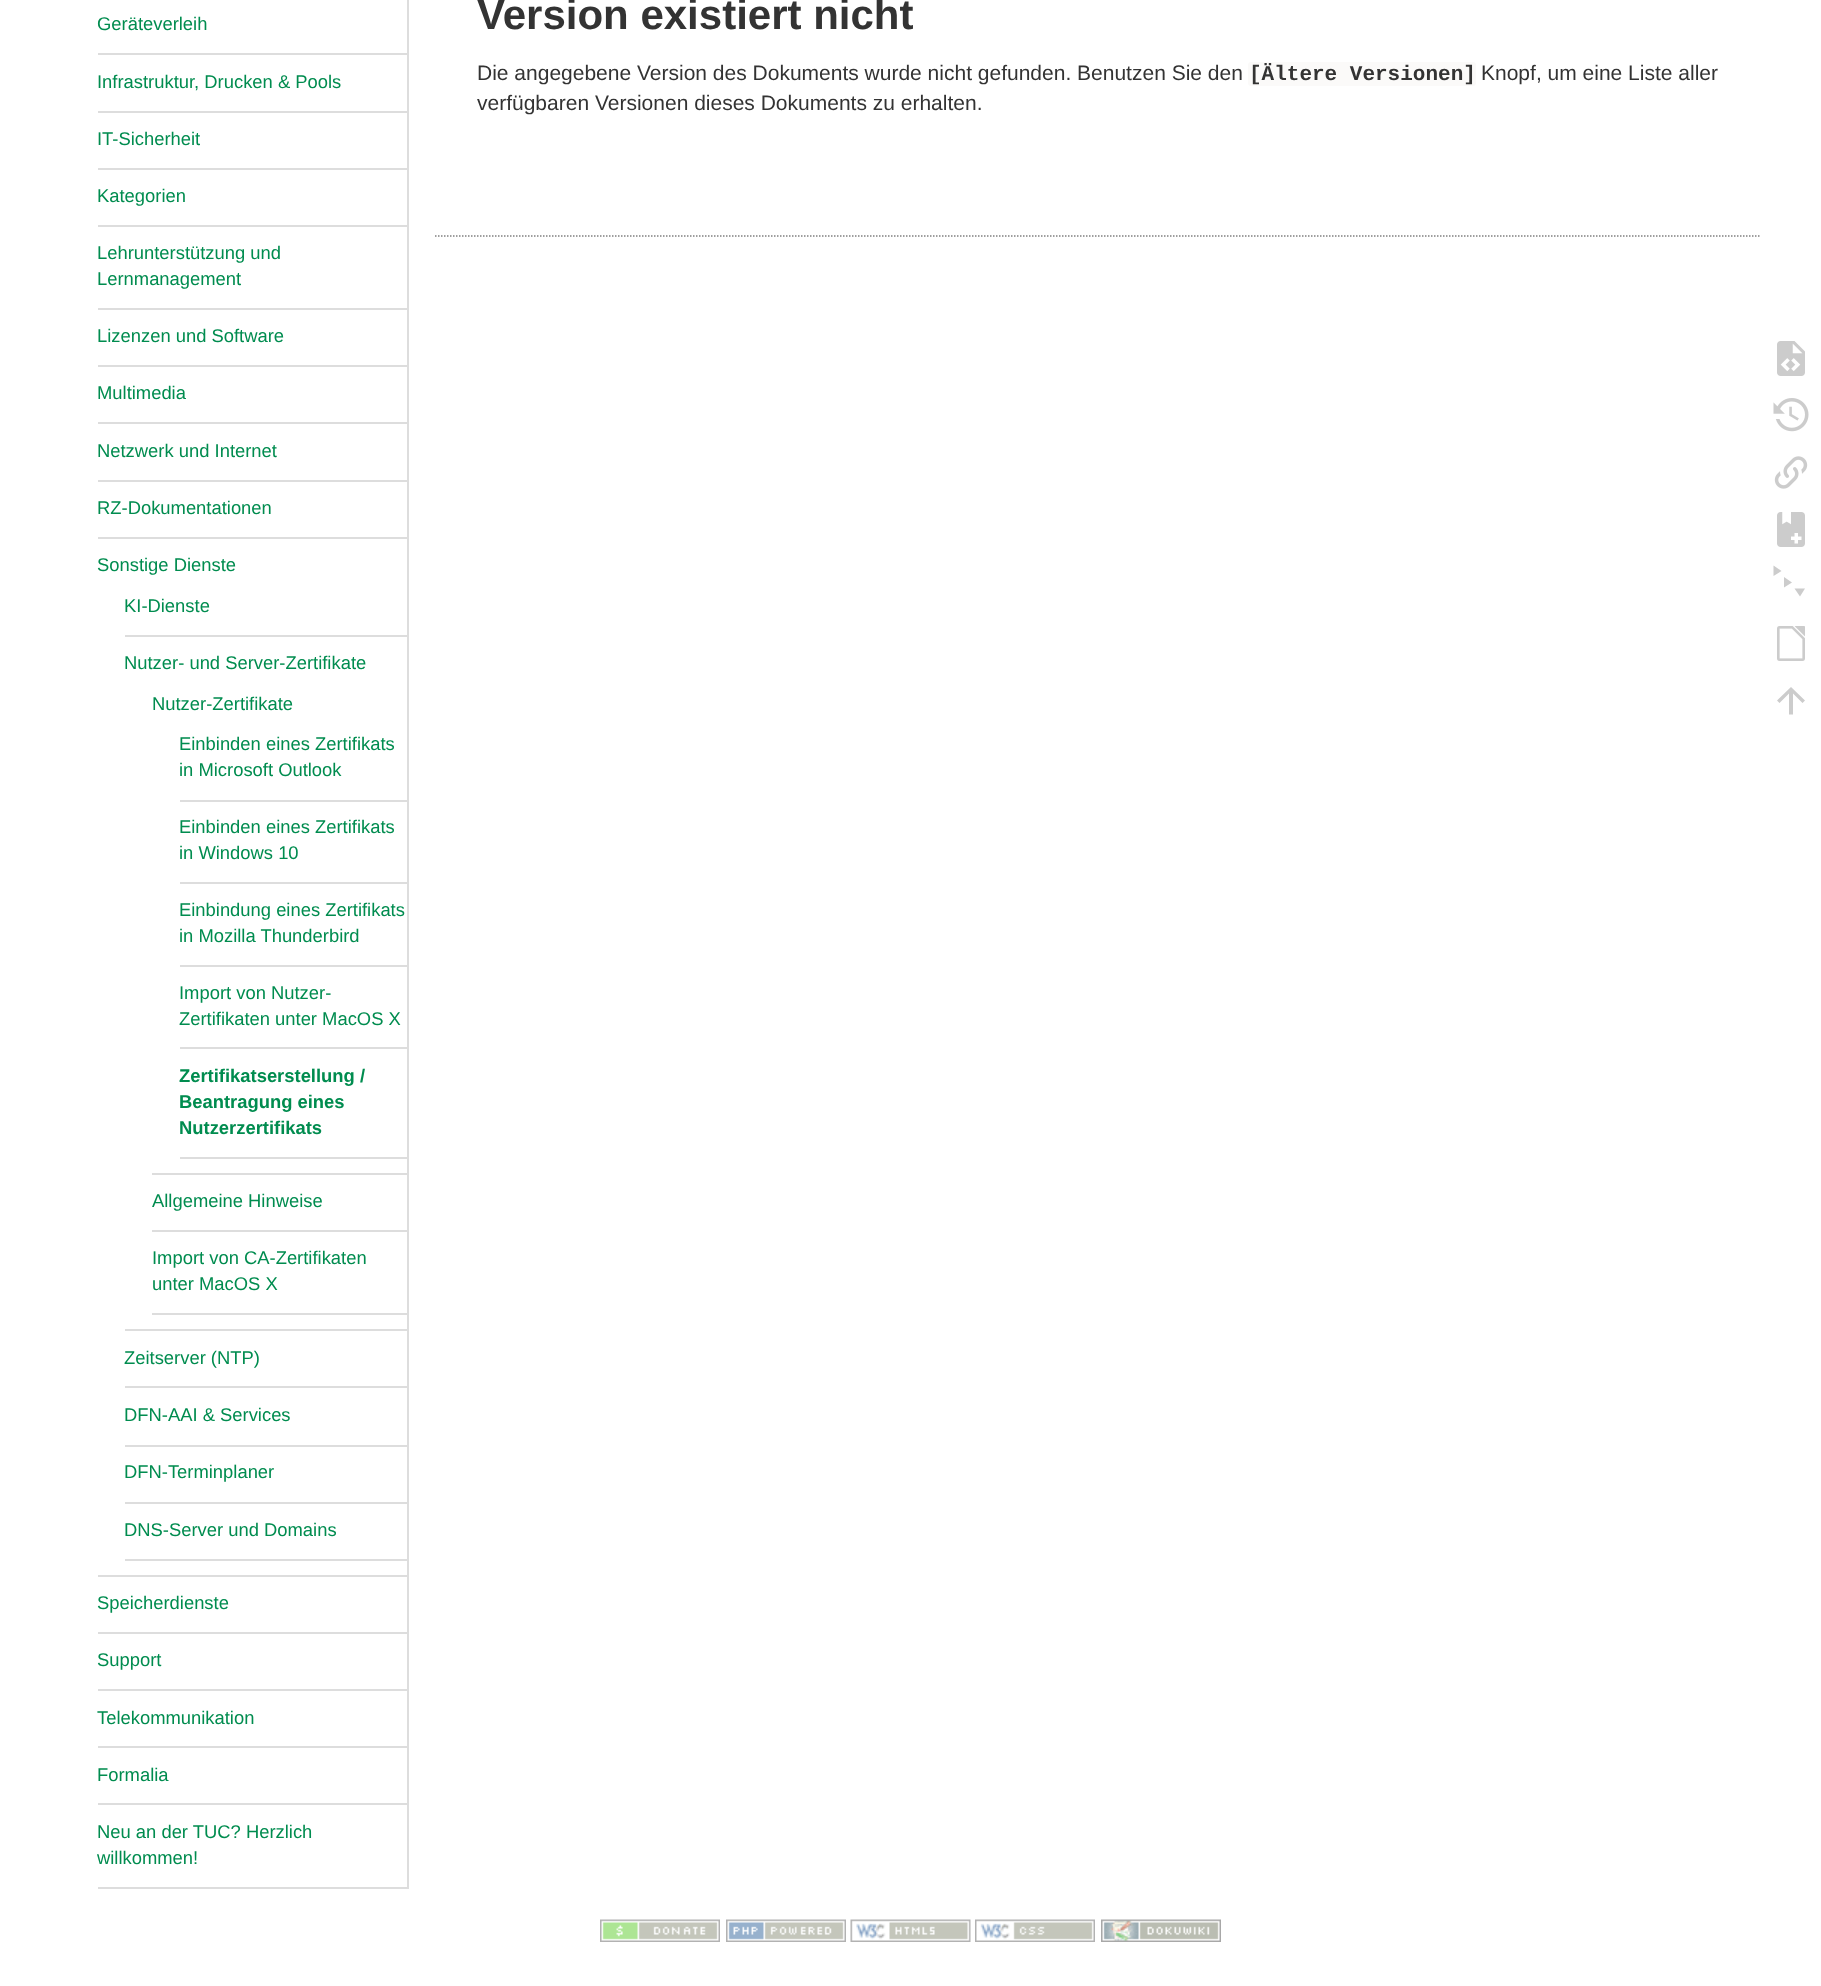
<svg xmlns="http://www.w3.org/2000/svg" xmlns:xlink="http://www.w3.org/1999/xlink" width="1821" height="1986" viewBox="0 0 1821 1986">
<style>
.cls-1{font:18.4px Liberation Sans;fill:#008c4f}
.cls-2{font:bold 18.4px Liberation Sans;fill:#008c4f}
.cls-3{font:bold 42px Liberation Sans;fill:#333333}
.cls-4{font:21px Liberation Sans;fill:#333333}
.cls-5{font:bold 21px Liberation Mono;fill:#333333}
</style>
<rect width="100%" height="100%" fill="#ffffff"/>
<rect fill="#dddddd" x="407" y="0" width="2" height="1889"/>
<rect fill="#dddddd" x="98" y="53" width="309" height="2"/>
<rect fill="#dddddd" x="98" y="111" width="309" height="2"/>
<rect fill="#dddddd" x="98" y="168" width="309" height="2"/>
<rect fill="#dddddd" x="98" y="225" width="309" height="2"/>
<rect fill="#dddddd" x="98" y="308" width="309" height="2"/>
<rect fill="#dddddd" x="98" y="365" width="309" height="2"/>
<rect fill="#dddddd" x="98" y="422" width="309" height="2"/>
<rect fill="#dddddd" x="98" y="480" width="309" height="2"/>
<rect fill="#dddddd" x="98" y="537" width="309" height="2"/>
<rect fill="#dddddd" x="98" y="1575" width="309" height="2"/>
<rect fill="#dddddd" x="125" y="635" width="282" height="2"/>
<rect fill="#dddddd" x="125" y="1329" width="282" height="2"/>
<rect fill="#dddddd" x="152" y="1173" width="255" height="2"/>
<rect fill="#dddddd" x="180" y="800" width="227" height="2"/>
<rect fill="#dddddd" x="180" y="882" width="227" height="2"/>
<rect fill="#dddddd" x="180" y="965" width="227" height="2"/>
<rect fill="#dddddd" x="180" y="1047" width="227" height="2"/>
<rect fill="#dddddd" x="180" y="1157" width="227" height="2"/>
<rect fill="#dddddd" x="152" y="1230" width="255" height="2"/>
<rect fill="#dddddd" x="152" y="1313" width="255" height="2"/>
<rect fill="#dddddd" x="125" y="1386" width="282" height="2"/>
<rect fill="#dddddd" x="125" y="1445" width="282" height="2"/>
<rect fill="#dddddd" x="125" y="1502" width="282" height="2"/>
<rect fill="#dddddd" x="125" y="1559" width="282" height="2"/>
<rect fill="#dddddd" x="98" y="1632" width="309" height="2"/>
<rect fill="#dddddd" x="98" y="1689" width="309" height="2"/>
<rect fill="#dddddd" x="98" y="1746" width="309" height="2"/>
<rect fill="#dddddd" x="98" y="1803" width="309" height="2"/>
<rect fill="#dddddd" x="98" y="1887" width="309" height="2"/>
<rect fill="#fbfaf9" x="1248" y="62" width="228" height="24" rx="3"/>
<path fill="none" stroke="#808080" stroke-width="1.5" stroke-dasharray="1.5 1.5" d="M435 236H1761"/>
<image xlink:href="image0.png" x="1777" y="341" width="28" height="35"/>
<image xlink:href="image1.png" x="1773" y="398" width="36" height="34"/>
<image xlink:href="image2.png" x="1774" y="456" width="34" height="33"/>
<image xlink:href="image3.png" x="1777" y="512" width="28" height="35"/>
<path fill="#cccccc" d="M1773.5 565.5L1781.5 571L1773.5 576ZM1784 577L1792 582.5L1784 587.5ZM1794.5 588.5H1805L1800 596.5Z"/>
<image xlink:href="image4.png" x="1777" y="626" width="28" height="35"/>
<path fill="#cccccc" d="M1793 714.5H1789V693.5L1779.5 703L1777 700.5L1791 687L1805 700.5L1802.5 703L1793 693.5Z"/>
<image xlink:href="image5.png" x="600" y="1919" width="120" height="23"/>
<image xlink:href="image6.png" x="726" y="1919" width="120" height="23"/>
<image xlink:href="image7.png" x="850" y="1919" width="121" height="23"/>
<image xlink:href="image8.png" x="975" y="1919" width="120" height="23"/>
<image xlink:href="image9.png" x="1101" y="1919" width="120" height="23"/>
<text class="cls-1" x="97" y="30">Geräteverleih</text>
<text class="cls-1" x="97" y="88">Infrastruktur, Drucken &amp; Pools</text>
<text class="cls-1" x="97" y="145">IT-Sicherheit</text>
<text class="cls-1" x="97" y="202">Kategorien</text>
<text class="cls-1"><tspan x="97" y="259">Lehrunterstützung und</tspan><tspan x="97" y="285">Lernmanagement</tspan></text>
<text class="cls-1" x="97" y="342">Lizenzen und Software</text>
<text class="cls-1" x="97" y="399">Multimedia</text>
<text class="cls-1" x="97" y="457">Netzwerk und Internet</text>
<text class="cls-1" x="97" y="514">RZ-Dokumentationen</text>
<text class="cls-1" x="97" y="571">Sonstige Dienste</text>
<text class="cls-1" x="124" y="612">KI-Dienste</text>
<text class="cls-1" x="124" y="669">Nutzer- und Server-Zertifikate</text>
<text class="cls-1" x="152" y="710">Nutzer-Zertifikate</text>
<text class="cls-1"><tspan x="179" y="750">Einbinden eines Zertifikats</tspan><tspan x="179" y="776">in Microsoft Outlook</tspan></text>
<text class="cls-1"><tspan x="179" y="833">Einbinden eines Zertifikats</tspan><tspan x="179" y="859">in Windows 10</tspan></text>
<text class="cls-1"><tspan x="179" y="916">Einbindung eines Zertifikats</tspan><tspan x="179" y="942">in Mozilla Thunderbird</tspan></text>
<text class="cls-1"><tspan x="179" y="999">Import von Nutzer-</tspan><tspan x="179" y="1025">Zertifikaten unter MacOS X</tspan></text>
<text class="cls-2"><tspan x="179" y="1082">Zertifikatserstellung /</tspan><tspan x="179" y="1108">Beantragung eines</tspan><tspan x="179" y="1134">Nutzerzertifikats</tspan></text>
<text class="cls-1" x="152" y="1207">Allgemeine Hinweise</text>
<text class="cls-1"><tspan x="152" y="1264">Import von CA-Zertifikaten</tspan><tspan x="152" y="1290">unter MacOS X</tspan></text>
<text class="cls-1" x="124" y="1364">Zeitserver (NTP)</text>
<text class="cls-1" x="124" y="1421">DFN-AAI &amp; Services</text>
<text class="cls-1" x="124" y="1478">DFN-Terminplaner</text>
<text class="cls-1" x="124" y="1536">DNS-Server und Domains</text>
<text class="cls-1" x="97" y="1609">Speicherdienste</text>
<text class="cls-1" x="97" y="1666">Support</text>
<text class="cls-1" x="97" y="1724">Telekommunikation</text>
<text class="cls-1" x="97" y="1781">Formalia</text>
<text class="cls-1"><tspan x="97" y="1838">Neu an der TUC? Herzlich</tspan><tspan x="97" y="1864">willkommen!</tspan></text>
<text class="cls-3" x="477" y="29">Version existiert nicht</text>
<text class="cls-4" x="477" y="80">Die angegebene Version des Dokuments wurde nicht gefunden. Benutzen Sie den</text>
<text class="cls-5" x="1249" y="80">[Ältere Versionen]</text>
<text class="cls-4" x="1481" y="80">Knopf, um eine Liste aller</text>
<text class="cls-4" x="477" y="110">verfügbaren Versionen dieses Dokuments zu erhalten.</text>
</svg>
